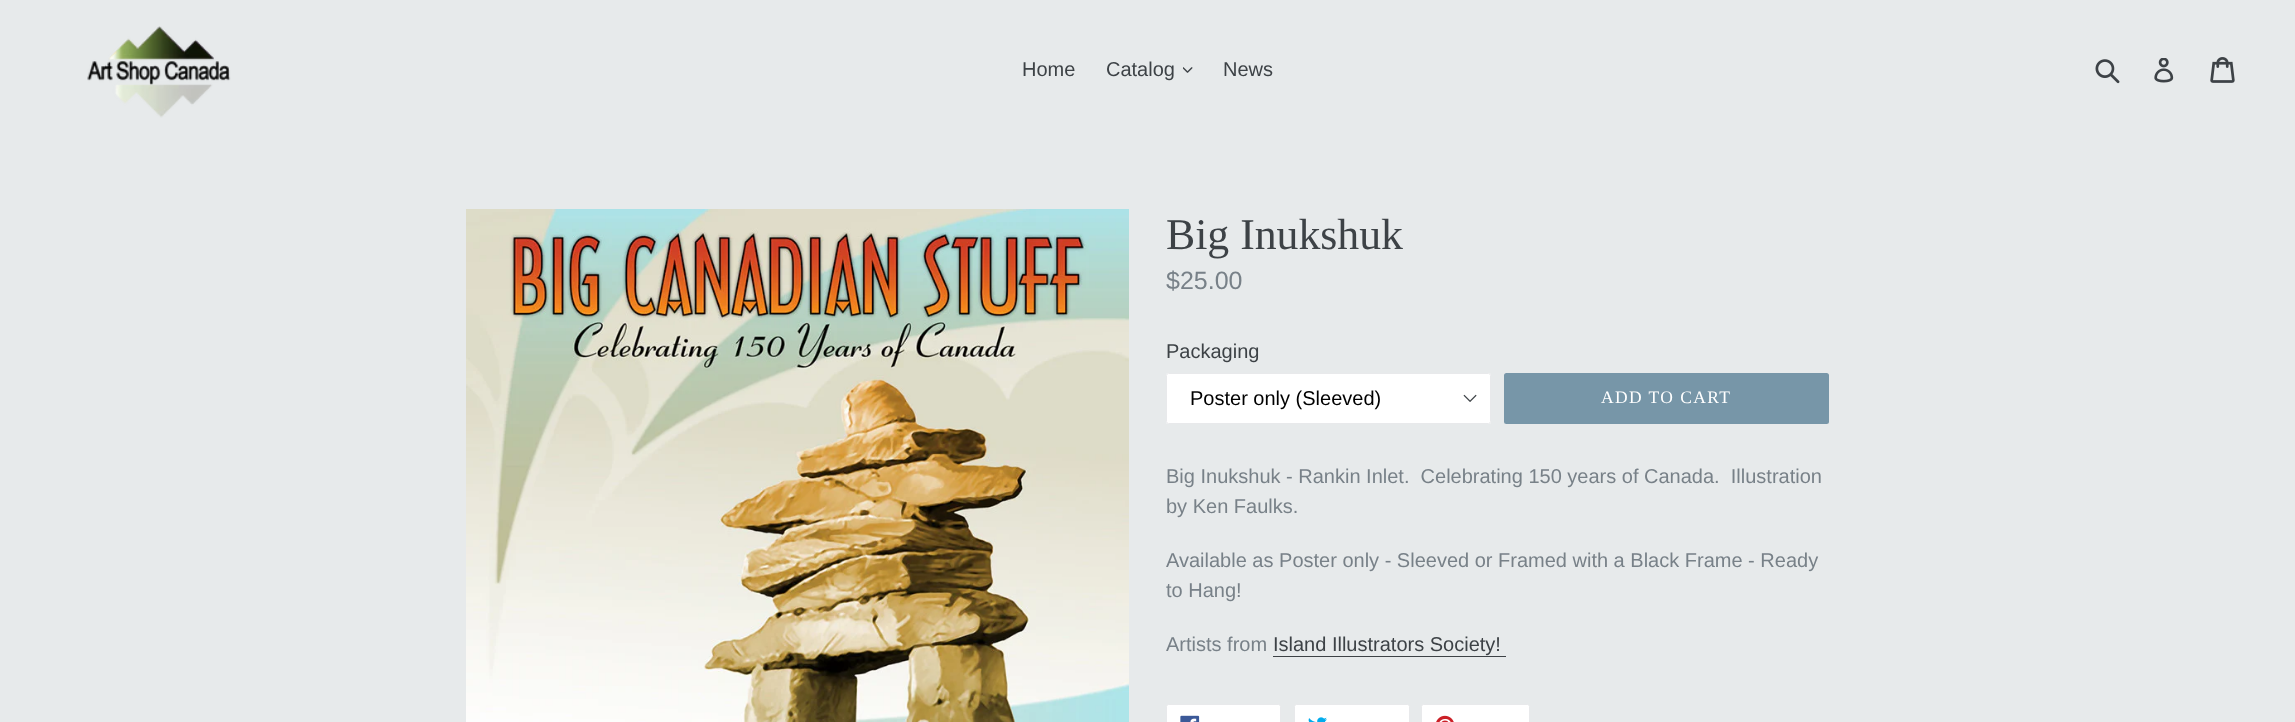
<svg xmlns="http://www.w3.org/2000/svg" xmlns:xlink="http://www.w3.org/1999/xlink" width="2295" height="722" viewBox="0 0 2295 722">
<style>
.cls-1{font:20px Liberation Sans;fill:#3d4246}
.cls-2{font:43.75px Liberation Serif;fill:#3d4246}
.cls-3{font:25px Liberation Sans;fill:#788188}
.cls-4{font:20px Liberation Sans;fill:#000000}
.cls-5{font:17.5px Liberation Serif;letter-spacing:1.4px;fill:#ffffff}
.cls-6{font:20px Liberation Sans;fill:#788188}
</style>
<rect width="100%" height="100%" fill="#e7eaeb"/>
<image xlink:href="image0.png" x="87" y="26" width="144" height="92"/>
<image xlink:href="image1.png" x="1183" y="67" width="10" height="6"/>
<image xlink:href="image2.png" x="2095" y="59" width="25" height="25"/>
<image xlink:href="image3.png" x="2154" y="58" width="20" height="25"/>
<image xlink:href="image4.png" x="2210" y="57" width="25" height="26"/>
<image xlink:href="image5.png" x="466" y="209" width="663" height="513"/>
<rect fill="#ffffff" x="1166" y="373" width="325" height="51" rx="2.5"/>
<image xlink:href="image6.png" x="1463" y="394" width="14" height="8"/>
<rect fill="none" stroke="#e8e9eb" x="1166.5" y="373.5" width="324" height="50" rx="2"/>
<rect fill="#7796a8" x="1504" y="373" width="325" height="51" rx="2.5"/>
<rect fill="#3d4246" x="1273" y="656" width="233" height="1"/>
<rect fill="#ffffff" stroke="#e8e9eb" x="1166.5" y="704.5" width="114" height="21" rx="2"/>
<image xlink:href="image7.png" x="1180" y="715" width="20" height="7"/>
<rect fill="#ffffff" stroke="#e8e9eb" x="1294.5" y="704.5" width="115" height="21" rx="2"/>
<image xlink:href="image8.png" x="1308" y="717" width="19" height="5"/>
<rect fill="#ffffff" stroke="#e8e9eb" x="1421.5" y="704.5" width="108" height="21" rx="2"/>
<image xlink:href="image9.png" x="1436" y="715" width="18" height="7"/>
<text class="cls-1" x="1022" y="76">Home</text>
<text class="cls-1" x="1106" y="76">Catalog</text>
<text class="cls-1" x="1223" y="76">News</text>
<text class="cls-2" x="1166" y="249">Big Inukshuk</text>
<text class="cls-3" x="1166" y="289">$25.00</text>
<text class="cls-1" x="1166" y="358">Packaging</text>
<text class="cls-4" x="1190" y="405">Poster only (Sleeved)</text>
<text class="cls-5" x="1601" y="403">ADD TO CART</text>
<text class="cls-6" xml:space="preserve"><tspan x="1166" y="483">Big Inukshuk - Rankin Inlet.  Celebrating 150 years of Canada.  Illustration</tspan><tspan x="1166" y="513">by Ken Faulks.</tspan></text>
<text class="cls-6"><tspan x="1166" y="567">Available as Poster only - Sleeved or Framed with a Black Frame - Ready</tspan><tspan x="1166" y="597">to Hang!</tspan></text>
<text class="cls-6" x="1166" y="651">Artists from</text>
<text class="cls-1" x="1273" y="651">Island Illustrators Society!</text>
</svg>
